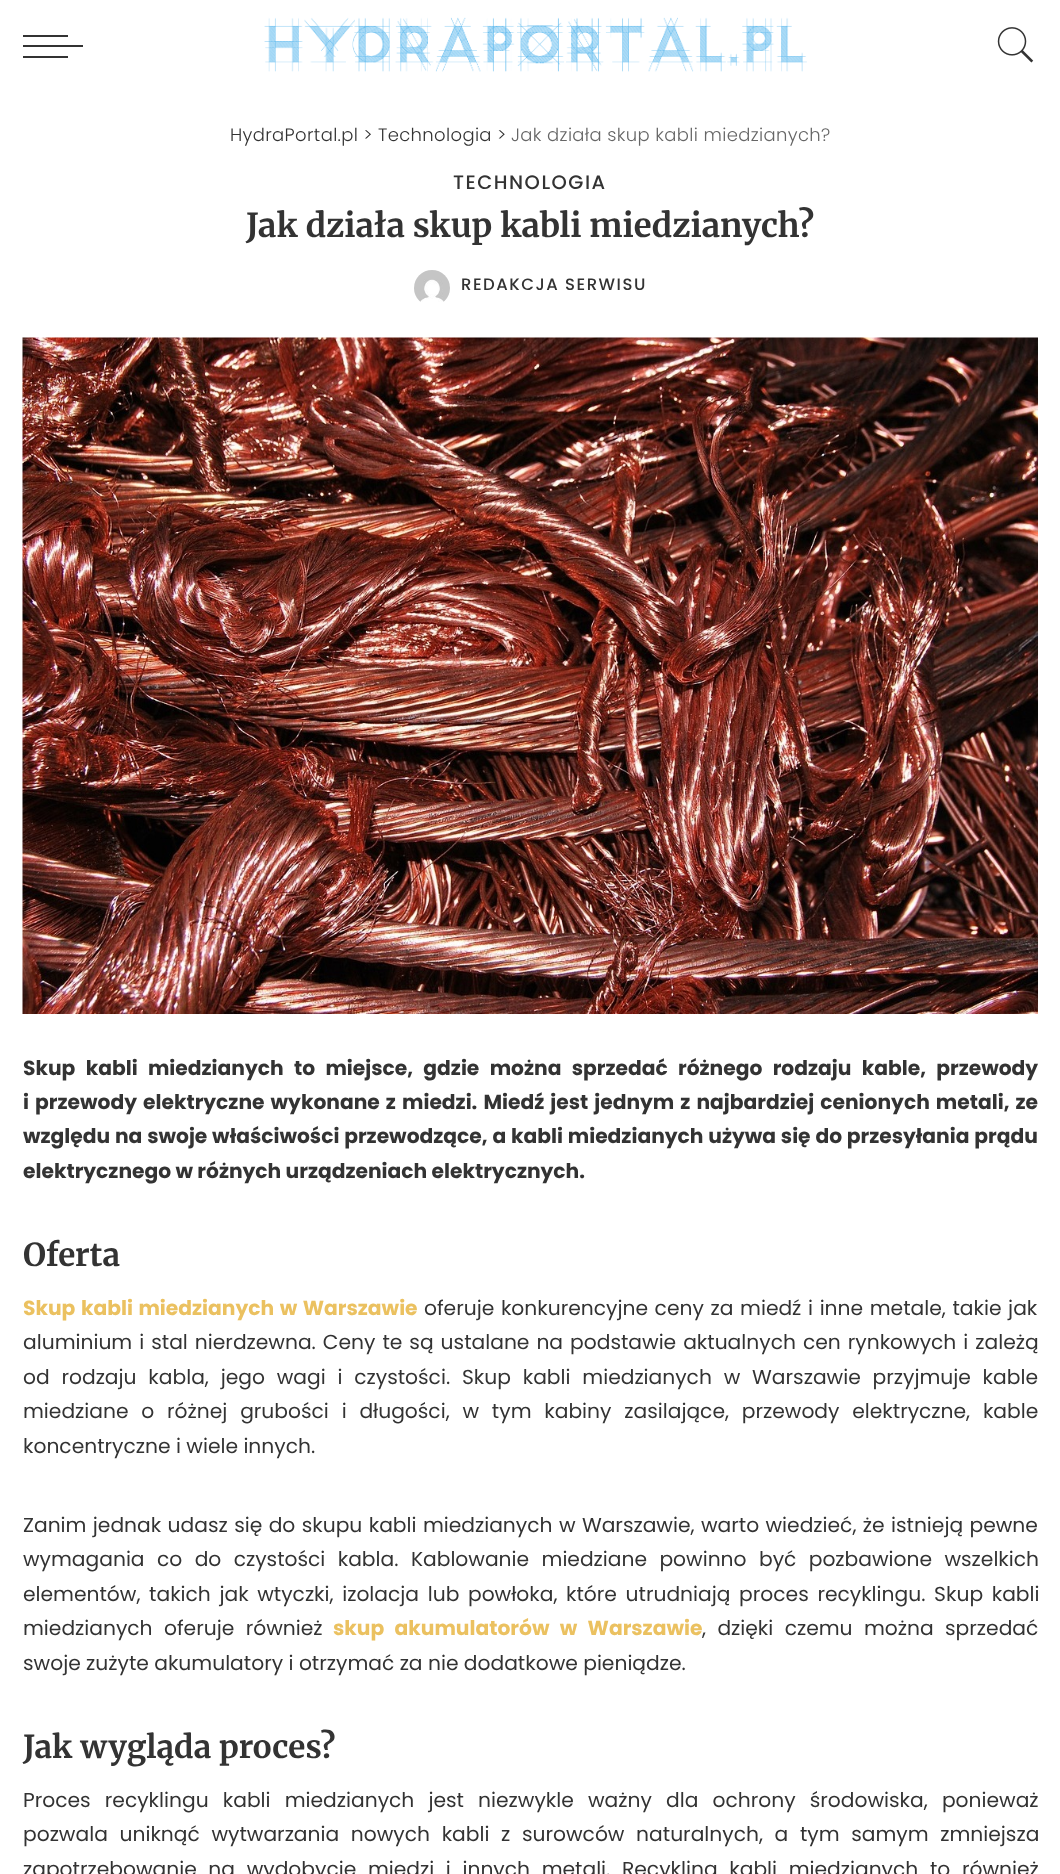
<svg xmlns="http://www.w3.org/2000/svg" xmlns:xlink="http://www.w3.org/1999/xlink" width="1060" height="1874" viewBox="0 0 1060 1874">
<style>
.cls-1{font:300 18px Poppins;letter-spacing:0.35px;fill:#333333}
.cls-2{font:300 18px Poppins;letter-spacing:0.35px;fill:#666666}
.cls-3{font:500 19.5px Poppins;letter-spacing:1.5px;fill:#333333}
.cls-4{font:bold 33px Merriweather;fill:#333333}
.cls-5{font:500 16.5px Poppins;letter-spacing:1.5px;fill:#333333}
.cls-6{font:bold 20.25px Poppins;fill:#333333}
.cls-7{font:bold 31.5px Merriweather;fill:#333333}
.cls-8{font:bold 20.25px Poppins;fill:#ebc160}
.cls-9{font:20.25px Poppins;fill:#333333}
</style>
<rect width="100%" height="100%" fill="#ffffff"/>
<rect fill="#333333" x="23" y="45" width="60" height="2"/>
<rect fill="#333333" x="23" y="35" width="45" height="2"/>
<rect fill="#333333" x="23" y="56" width="45" height="2"/>
<image xlink:href="image0.png" x="264" y="17" width="543" height="55"/>
<image xlink:href="image1.png" x="997" y="27" width="37" height="36"/>
<image xlink:href="image2.png" x="414" y="270" width="36" height="32"/>
<image xlink:href="image3.png" x="22" y="337" width="1016" height="677"/>
<text class="cls-1" x="230" y="141">HydraPortal.pl &gt; Technologia &gt;</text>
<text class="cls-2" x="511" y="141">Jak działa skup kabli miedzianych?</text>
<text class="cls-3" x="453" y="189">TECHNOLOGIA</text>
<text class="cls-4" x="246" y="237">Jak działa skup kabli miedzianych?</text>
<text class="cls-5" x="461" y="290">REDAKCJA SERWISU</text>
<text class="cls-6"><tspan x="23" y="1075" word-spacing="6">Skup kabli miedzianych to miejsce, gdzie można sprzedać różnego rodzaju kable, przewody</tspan><tspan x="23" y="1109" word-spacing="1.75">i przewody elektryczne wykonane z miedzi. Miedź jest jednym z najbardziej cenionych metali, ze</tspan><tspan x="23" y="1143" word-spacing="0.5">względu na swoje właściwości przewodzące, a kabli miedzianych używa się do przesyłania prądu</tspan><tspan x="23" y="1178">elektrycznego w różnych urządzeniach elektrycznych.</tspan></text>
<text class="cls-7" x="23" y="1266">Oferta</text>
<text class="cls-8" x="23" y="1315" word-spacing="1.25">Skup kabli miedzianych w Warszawie</text>
<text class="cls-9" x="424" y="1315" word-spacing="1.25">oferuje konkurencyjne ceny za miedź i inne metale, takie jak</text>
<text class="cls-9"><tspan x="23" y="1349" word-spacing="1.6">aluminium i stal nierdzewna. Ceny te są ustalane na podstawie aktualnych cen rynkowych i zależą</tspan><tspan x="23" y="1384" word-spacing="6.4">od rodzaju kabla, jego wagi i czystości. Skup kabli miedzianych w Warszawie przyjmuje kable</tspan><tspan x="23" y="1418" word-spacing="7.4">miedziane o różnej grubości i długości, w tym kabiny zasilające, przewody elektryczne, kable</tspan><tspan x="23" y="1453">koncentryczne i wiele innych.</tspan></text>
<text class="cls-9"><tspan x="23" y="1532" word-spacing="1">Zanim jednak udasz się do skupu kabli miedzianych w Warszawie, warto wiedzieć, że istnieją pewne</tspan><tspan x="23" y="1566" word-spacing="7">wymagania co do czystości kabla. Kablowanie miedziane powinno być pozbawione wszelkich</tspan><tspan x="23" y="1601" word-spacing="3.25">elementów, takich jak wtyczki, izolacja lub powłoka, które utrudniają proces recyklingu. Skup kabli</tspan><tspan x="23" y="1635" word-spacing="6">miedzianych oferuje również</tspan></text>
<text class="cls-8" x="333" y="1635" word-spacing="6">skup akumulatorów w Warszawie</text>
<text class="cls-9" x="702" y="1635" word-spacing="6">, dzięki czemu można sprzedać</text>
<text class="cls-9" x="23" y="1670">swoje zużyte akumulatory i otrzymać za nie dodatkowe pieniądze.</text>
<text class="cls-7" x="23" y="1758">Jak wygląda proces?</text>
<text class="cls-9"><tspan x="23" y="1807" word-spacing="8.75">Proces recyklingu kabli miedzianych jest niezwykle ważny dla ochrony środowiska, ponieważ</tspan><tspan x="23" y="1841" word-spacing="6.25">pozwala uniknąć wytwarzania nowych kabli z surowców naturalnych, a tym samym zmniejsza</tspan><tspan x="23" y="1876" word-spacing="6.25">zapotrzebowanie na wydobycie miedzi i innych metali. Recykling kabli miedzianych to również</tspan></text>
</svg>
